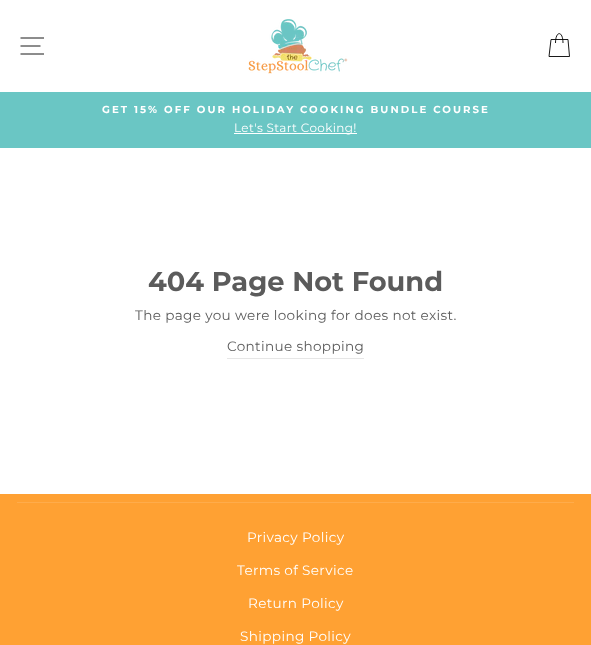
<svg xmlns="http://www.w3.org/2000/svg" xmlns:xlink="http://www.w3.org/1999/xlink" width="591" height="645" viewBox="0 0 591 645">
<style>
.cls-1{font:bold 10.2px Montserrat;letter-spacing:2.05px;fill:#ffffff}
.cls-2{font:12px Montserrat;letter-spacing:0.35px;fill:#ffffff}
.cls-3{font:bold 27.25px Montserrat;fill:#5b5b5b}
.cls-4{font:13.6px Montserrat;letter-spacing:0.35px;fill:#5b5b5b}
.cls-5{font:13.6px Montserrat;letter-spacing:0.35px;fill:#ffffff}
</style>
<rect width="100%" height="100%" fill="#ffffff"/>
<path fill="none" stroke="#000000" stroke-width="0.9" d="M20.5 38H44M20.5 46H40.5M20.5 54H44"/>
<image xlink:href="image0.png" x="248" y="19" width="100" height="55"/>
<path fill="none" stroke="#000000" stroke-width="0.9" d="M555.5 43C555.5 30.5 563 30.5 563 43M551 39.5H568L569.5 56.5H549Z"/>
<rect fill="#6ac6c4" x="0" y="92" width="591" height="56"/>
<rect fill="#ffffff" x="234" y="133" width="123" height="1"/>
<rect fill="#e6e6e6" x="227" y="358" width="137" height="1"/>
<rect fill="#ffa133" x="0" y="494" width="591" height="151"/>
<rect fill="#ffac4b" x="17" y="502" width="557" height="1"/>
<text class="cls-1" x="102" y="113">GET 15% OFF OUR HOLIDAY COOKING BUNDLE COURSE</text>
<text class="cls-2" x="234" y="132">Let's Start Cooking!</text>
<text class="cls-3" x="148" y="291">404 Page Not Found</text>
<text class="cls-4" x="135" y="320">The page you were looking for does not exist.</text>
<text class="cls-4" x="227" y="351">Continue shopping</text>
<text class="cls-5" x="247" y="542">Privacy Policy</text>
<text class="cls-5" x="237" y="575">Terms of Service</text>
<text class="cls-5" x="248" y="608">Return Policy</text>
<text class="cls-5" x="240" y="641">Shipping Policy</text>
</svg>
